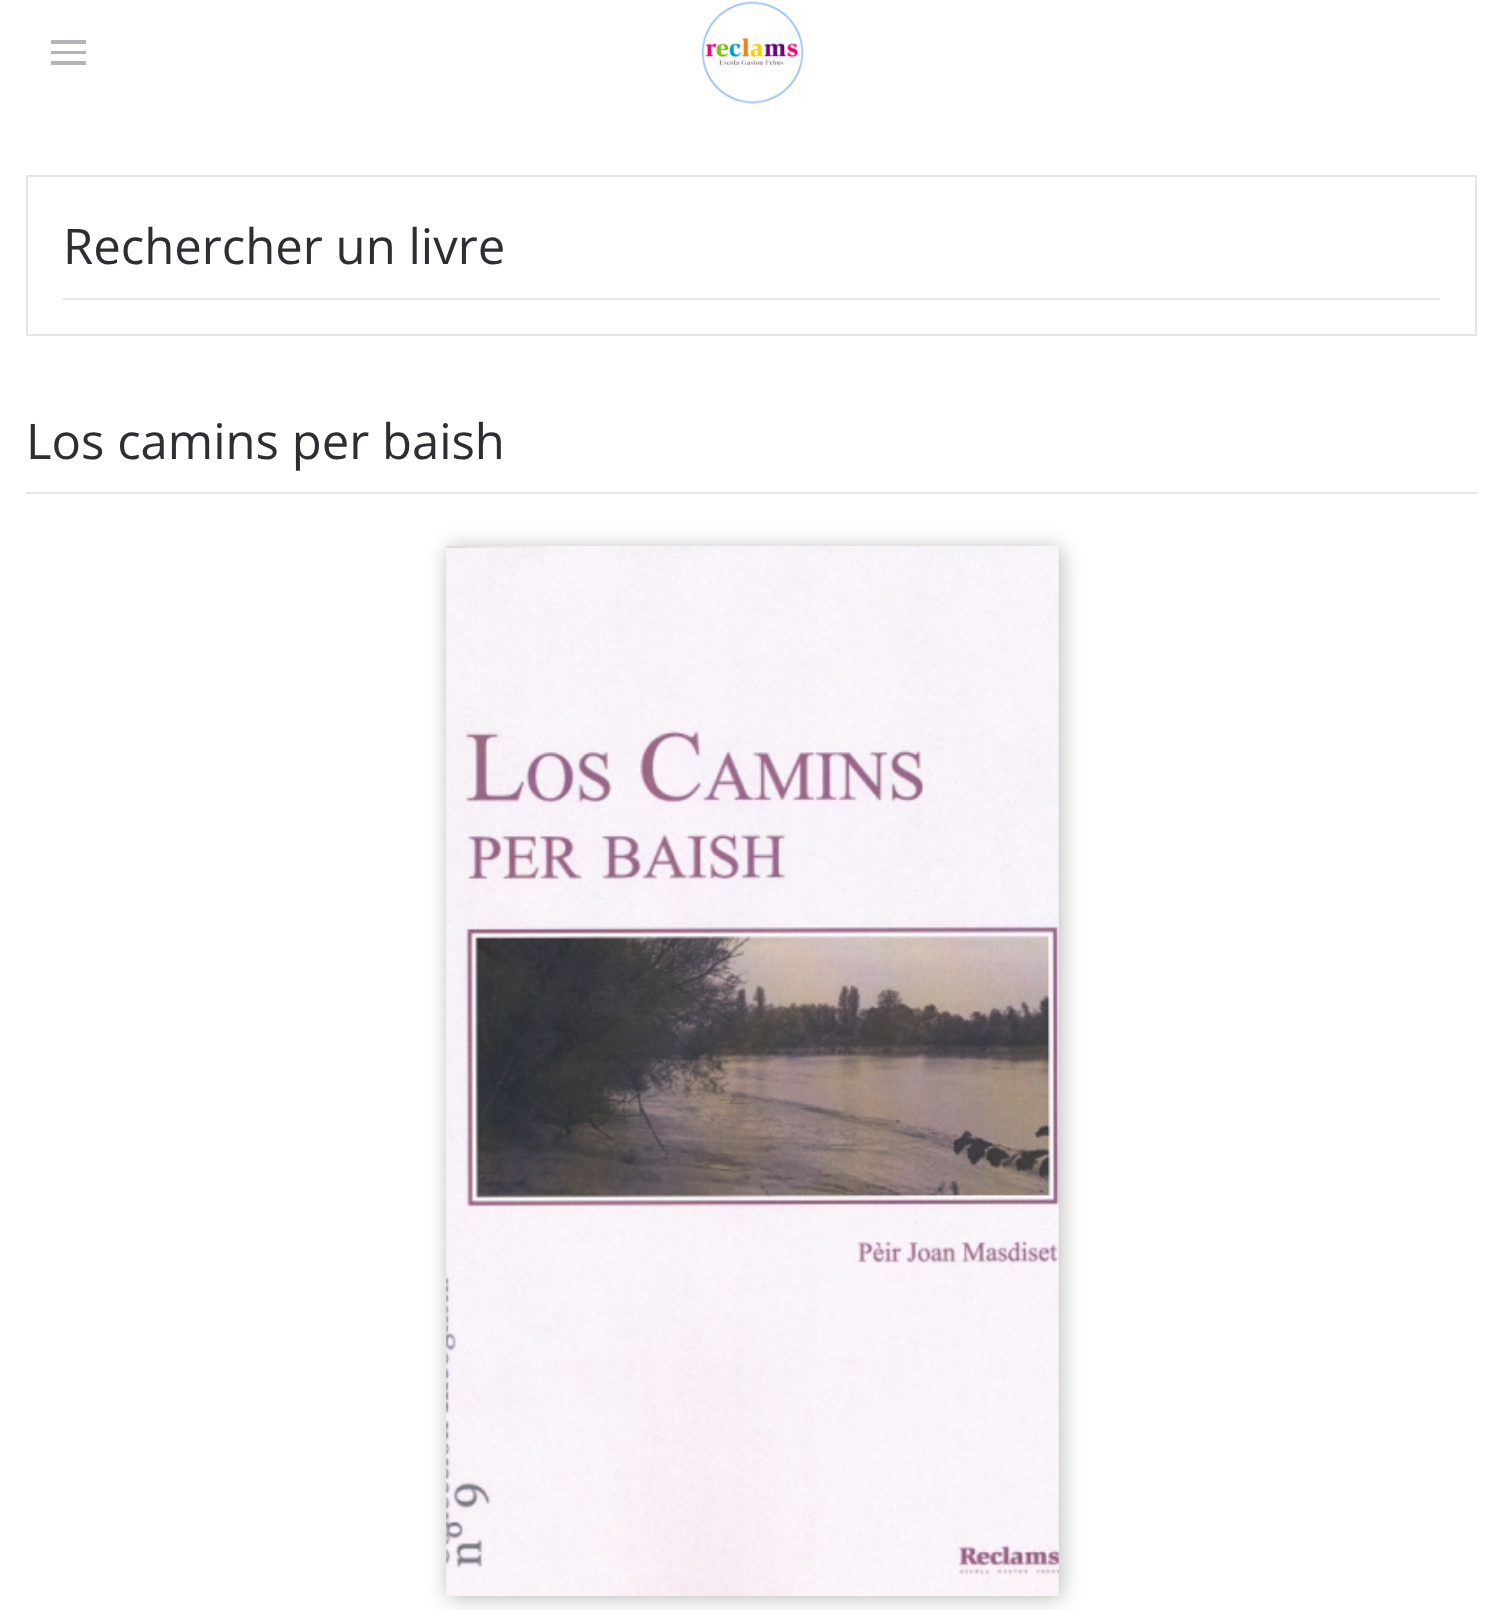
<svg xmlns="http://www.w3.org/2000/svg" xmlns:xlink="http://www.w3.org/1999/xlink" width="1502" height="1610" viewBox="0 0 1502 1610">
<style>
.cls-1{font:49px Open Sans;fill:#2d2e33}
</style>
<rect width="100%" height="100%" fill="#ffffff"/>
<rect fill="#b4b5ba" x="51" y="40" width="35" height="4"/>
<rect fill="#b4b5ba" x="51" y="51" width="35" height="3"/>
<rect fill="#b4b5ba" x="51" y="61" width="35" height="4"/>
<image xlink:href="image0.png" x="701" y="1" width="103" height="103"/>
<rect fill="none" stroke="#e5e5e7" stroke-width="2" x="27" y="176" width="1449" height="159"/>
<rect fill="#e5e5e7" x="63" y="298" width="1377" height="2"/>
<rect fill="#e5e5e7" x="26" y="492" width="1451" height="2"/>
<rect fill="#bbb9b9" filter="blur(10.5px)" x="448" y="548" width="613" height="1050"/>
<image xlink:href="image1.png" x="446" y="546" width="613" height="1050"/>
<text class="cls-1" x="63" y="264">Rechercher un livre</text>
<text class="cls-1" x="26" y="459">Los camins per baish</text>
</svg>
